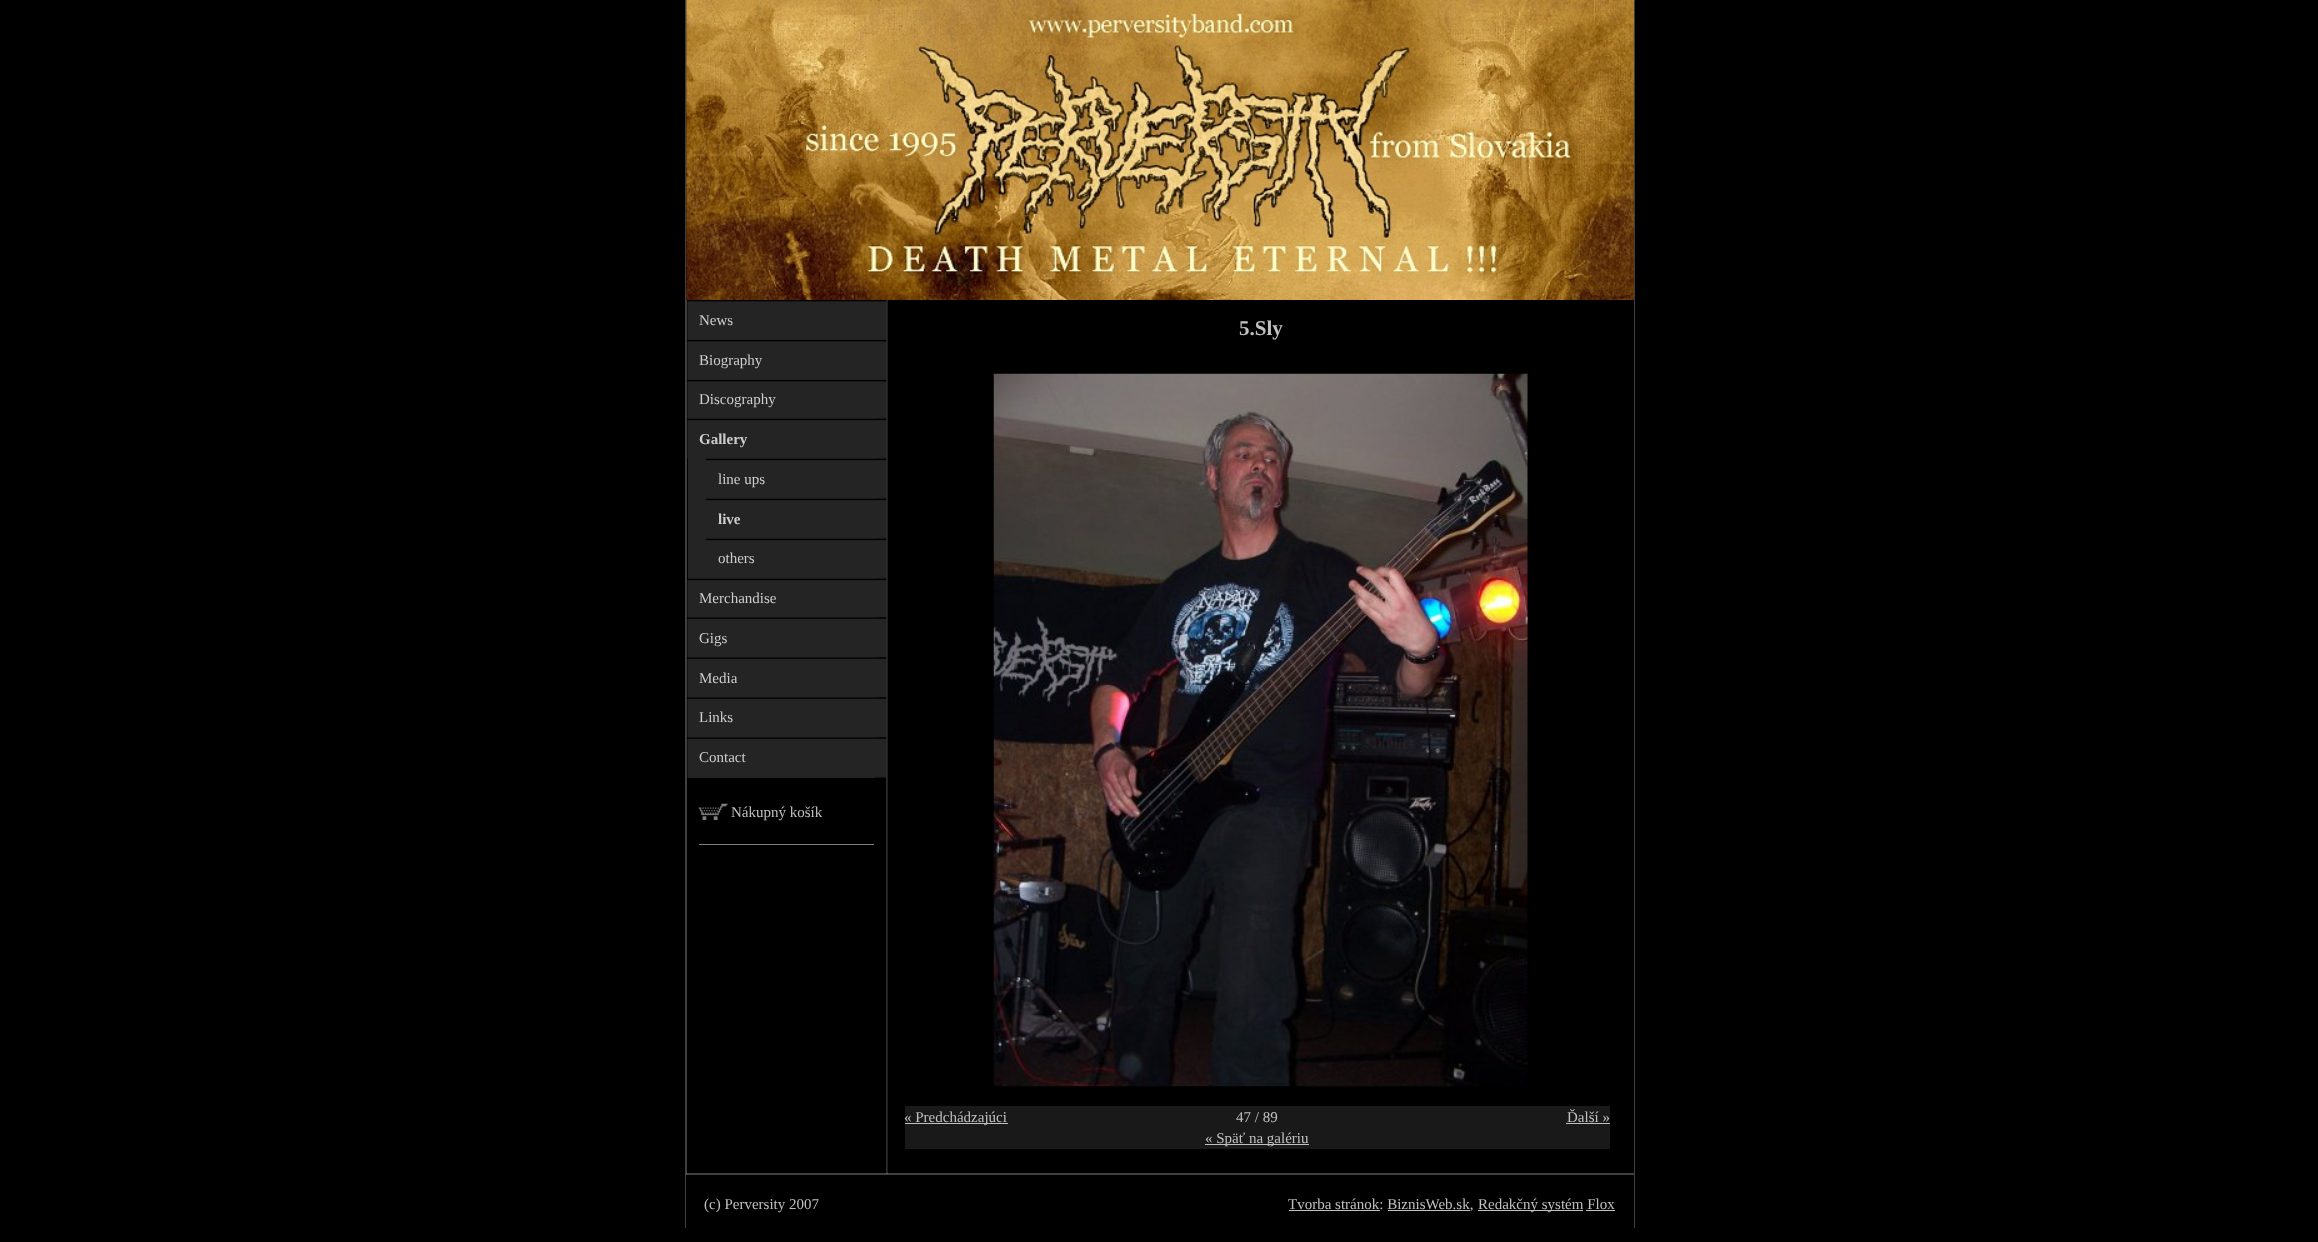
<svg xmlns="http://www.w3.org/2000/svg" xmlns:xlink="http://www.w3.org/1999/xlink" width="2318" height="1242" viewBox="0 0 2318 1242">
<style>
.cls-1{font:15px Liberation Serif;fill:#cdcdcd}
.cls-2{font:bold 15px Liberation Serif;fill:#cdcdcd}
.cls-3{font:15px Liberation Serif;fill:#c0c0c0}
.cls-4{font:bold 21px Liberation Serif;fill:#c0c0c0}
</style>
<rect width="100%" height="100%" fill="#000000"/>
<image xlink:href="image0.png" x="686" y="0" width="948" height="300"/>
<rect fill="#404040" x="1634" y="0" width="1" height="300"/>
<rect fill="#404040" x="685" y="0" width="1" height="300"/>
<rect fill="#ffffff" x="686" y="300" width="948" height="874"/>
<image xlink:href="image1.png" x="686" y="300" width="948" height="874"/>
<rect fill="#242424" x="688" y="418" width="187" height="360"/>
<image xlink:href="image2.png" x="687" y="300" width="200" height="40"/>
<image xlink:href="image2.png" x="687" y="340" width="200" height="40"/>
<image xlink:href="image3.png" x="687" y="380" width="200" height="39"/>
<image xlink:href="image4.png" x="687" y="418" width="200" height="41"/>
<image xlink:href="image5.png" x="706" y="458" width="181" height="41"/>
<image xlink:href="image5.png" x="706" y="498" width="181" height="41"/>
<image xlink:href="image5.png" x="706" y="538" width="181" height="41"/>
<image xlink:href="image6.png" x="687" y="578" width="200" height="40"/>
<image xlink:href="image7.png" x="687" y="617" width="200" height="41"/>
<image xlink:href="image7.png" x="687" y="657" width="200" height="41"/>
<image xlink:href="image7.png" x="687" y="697" width="200" height="41"/>
<image xlink:href="image7.png" x="687" y="737" width="200" height="41"/>
<rect fill="#808080" x="699" y="844" width="175" height="1"/>
<image xlink:href="image8.png" x="698" y="803" width="30" height="17"/>
<image xlink:href="image9.png" x="993" y="373" width="535" height="714"/>
<rect fill="#191919" x="905" y="1106" width="705" height="43"/>
<rect fill="#c0c0c0" x="905" y="1123" width="103" height="1"/>
<rect fill="#c0c0c0" x="1566" y="1123" width="44" height="1"/>
<rect fill="#c0c0c0" x="1205" y="1144" width="104" height="1"/>
<rect fill="#404040" x="685" y="1174" width="950" height="1"/>
<rect fill="#404040" x="1634" y="300" width="1" height="928"/>
<rect fill="#404040" x="685" y="300" width="1" height="928"/>
<rect fill="#c0c0c0" x="1289" y="1210" width="91" height="1"/>
<rect fill="#c0c0c0" x="1478" y="1210" width="105" height="1"/>
<rect fill="#c0c0c0" x="1388" y="1210" width="82" height="1"/>
<rect fill="#c0c0c0" x="1586" y="1210" width="29" height="1"/>
<text class="cls-1" x="699" y="325">News</text>
<text class="cls-1" x="699" y="365">Biography</text>
<text class="cls-1" x="699" y="404">Discography</text>
<text class="cls-2" x="699" y="444">Gallery</text>
<text class="cls-1" x="718" y="484">line ups</text>
<text class="cls-2" x="718" y="524">live</text>
<text class="cls-1" x="718" y="563">others</text>
<text class="cls-1" x="699" y="603">Merchandise</text>
<text class="cls-1" x="699" y="643">Gigs</text>
<text class="cls-1" x="699" y="683">Media</text>
<text class="cls-1" x="699" y="722">Links</text>
<text class="cls-1" x="699" y="762">Contact</text>
<text class="cls-3" x="731" y="817">Nákupný košík</text>
<text class="cls-4" x="1239" y="335">5.Sly</text>
<text class="cls-3" x="904" y="1122">« Predchádzajúci</text>
<text class="cls-3" x="1236" y="1122">47 / 89</text>
<text class="cls-3" x="1567" y="1122">Ďalší »</text>
<text class="cls-3" x="1205" y="1143">« Späť na galériu</text>
<text class="cls-3" x="704" y="1209">(c) Perversity 2007</text>
<text class="cls-3" x="1288" y="1209">Tvorba stránok: BiznisWeb.sk,</text>
<text class="cls-3" x="1478" y="1209">Redakčný systém Flox</text>
</svg>
